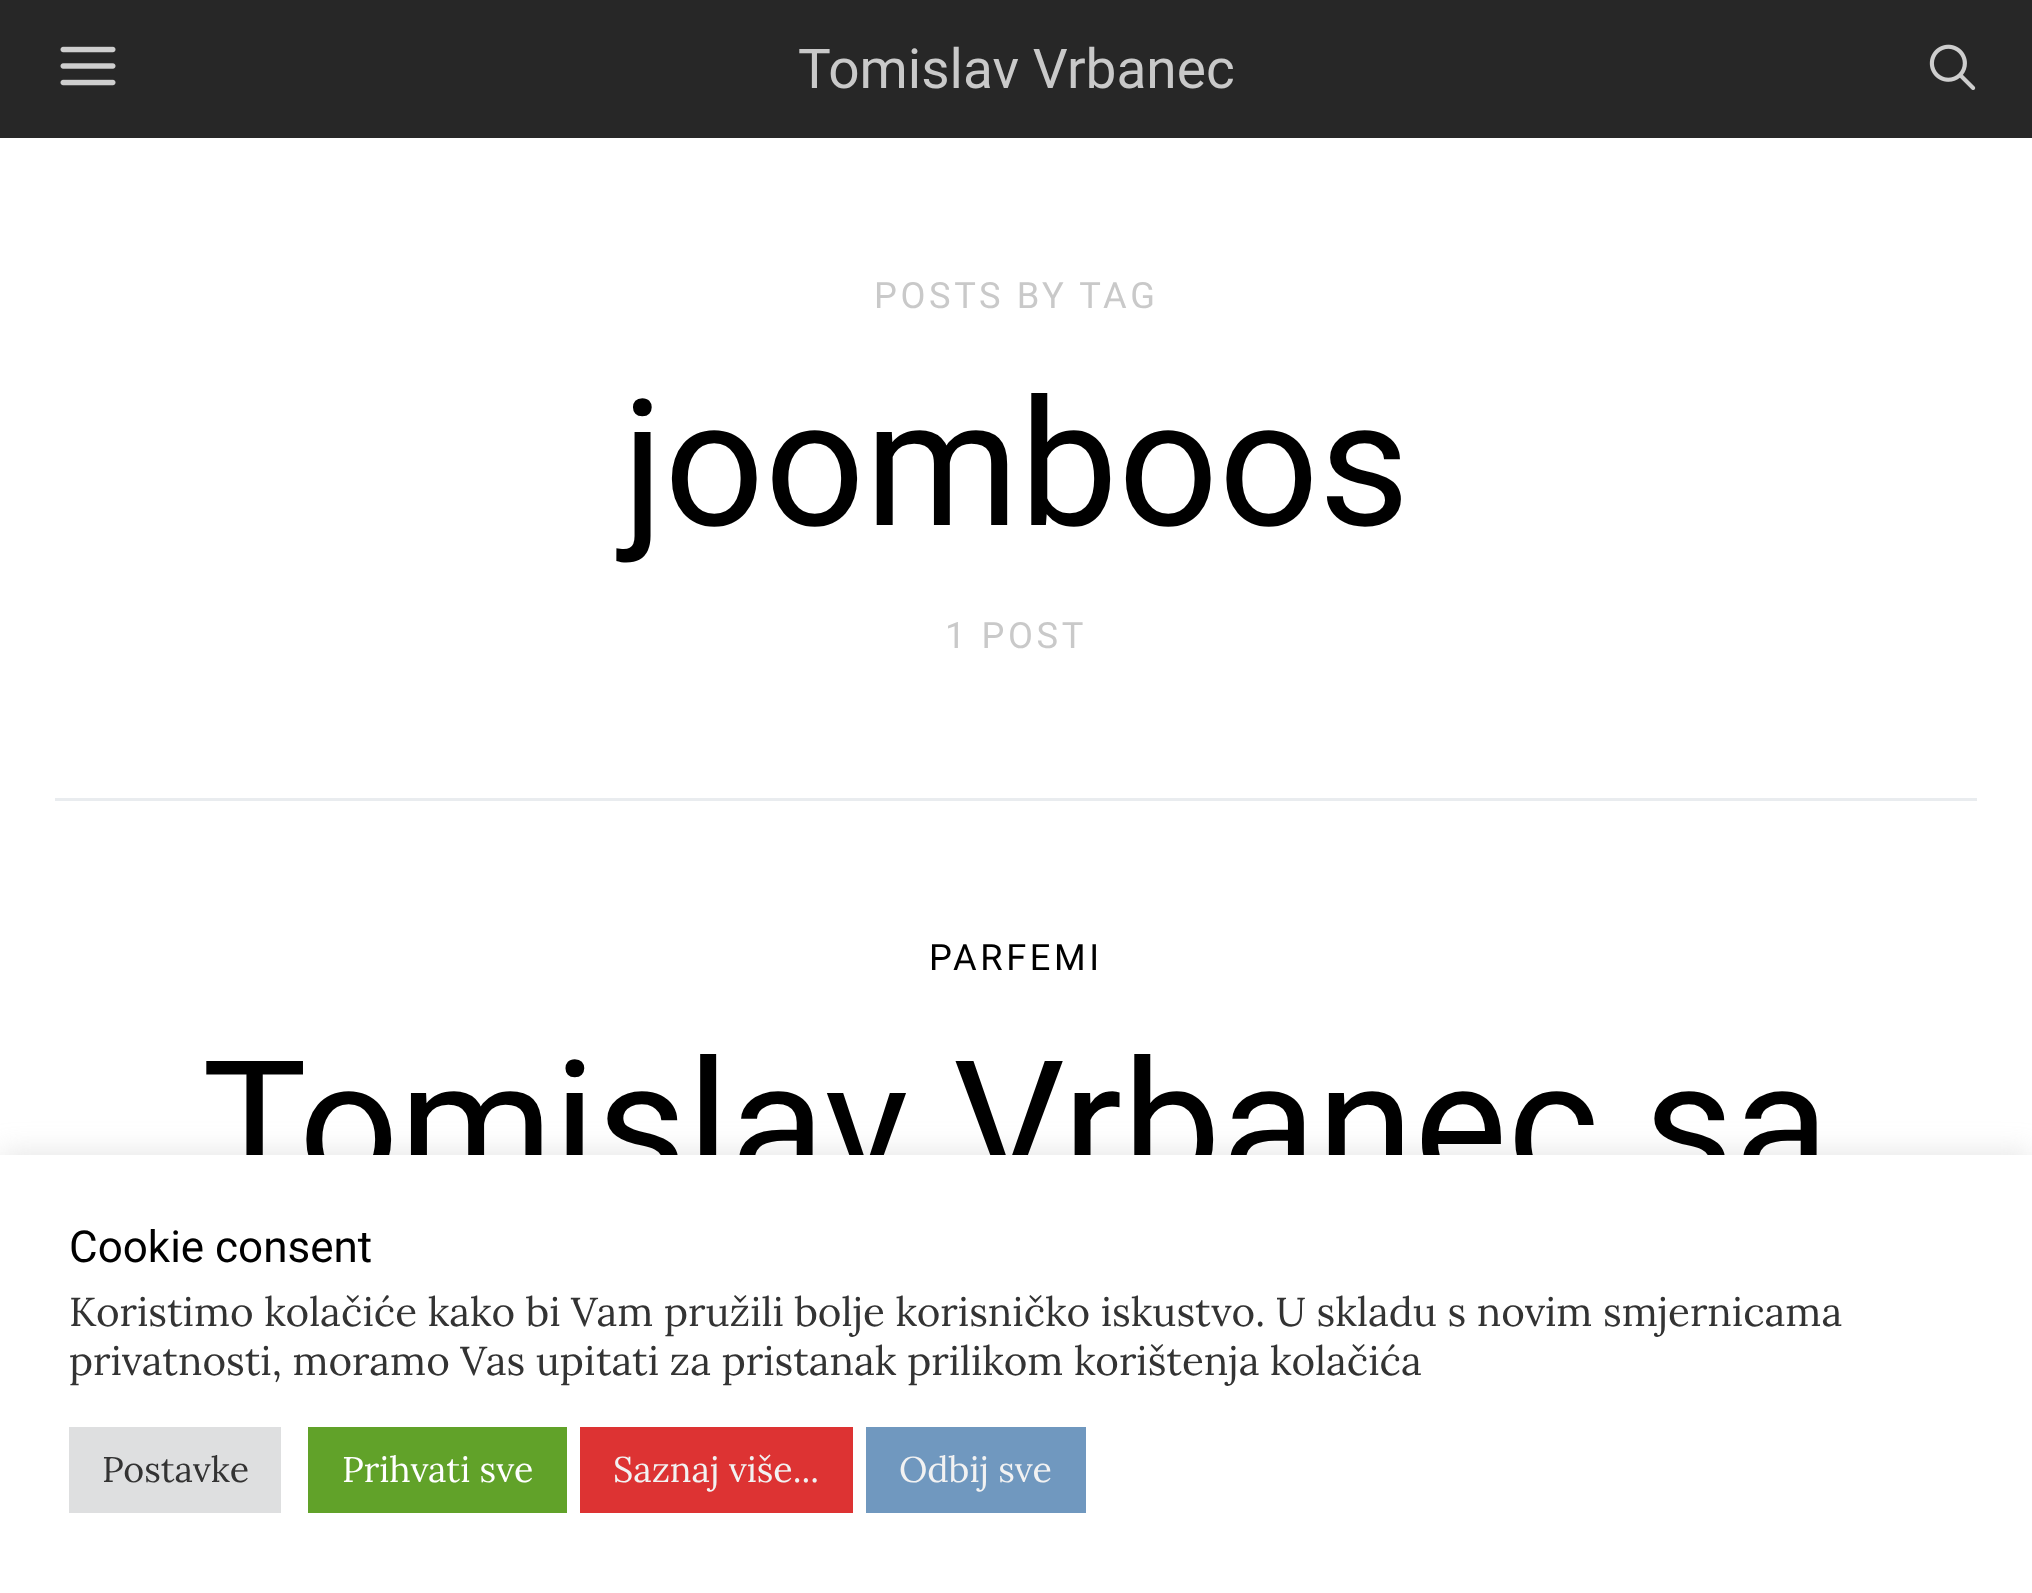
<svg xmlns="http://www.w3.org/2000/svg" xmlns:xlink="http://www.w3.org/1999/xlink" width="2032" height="1593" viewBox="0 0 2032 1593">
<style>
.cls-1{font:55px Roboto;fill:#c9c9c9}
.cls-2{font:36.25px Roboto;letter-spacing:3.6px;fill:#c9c9c9}
.cls-3{font:176px Roboto;fill:#000000}
.cls-4{font:36.25px Roboto;letter-spacing:3.6px;fill:#000000}
.cls-5{font:44px Roboto;fill:#000000}
.cls-6{font:40.35px Lora;fill:#333333}
.cls-7{font:35.75px Lora;fill:#333333}
.cls-8{font:35.75px Lora;fill:#ffffff}
.cls-9{font:35.75px Lora;fill:#f2f2f2}
</style>
<rect width="100%" height="100%" fill="#ffffff"/>
<rect fill="#272727" x="0" y="0" width="2032" height="138"/>
<image xlink:href="image0.png" x="60" y="46" width="56" height="40"/>
<image xlink:href="image1.png" x="1929" y="44" width="47" height="46"/>
<rect fill="#e9ecef" x="55" y="798" width="1922" height="3"/>
<rect fill="#acabab" fill-opacity="0.3" filter="blur(14px)" x="0" y="1152" width="2032" height="440"/>
<text class="cls-1" x="798" y="88">Tomislav Vrbanec</text>
<text class="cls-2" x="874" y="308">POSTS BY TAG</text>
<text class="cls-3" x="622" y="525">joomboos</text>
<text class="cls-2" x="945" y="648">1 POST</text>
<text class="cls-4" x="929" y="970">PARFEMI</text>
<text class="cls-3" x="202" y="1186">Tomislav Vrbanec sa</text>
<rect fill="#ffffff" x="0" y="1155" width="2032" height="438"/>
<text class="cls-5" x="69" y="1262">Cookie consent</text>
<text class="cls-6"><tspan x="69" y="1326">Koristimo kolačiće kako bi Vam pružili bolje korisničko iskustvo. U skladu s novim smjernicama</tspan><tspan x="69" y="1375">privatnosti, moramo Vas upitati za pristanak prilikom korištenja kolačića</tspan></text>
<rect fill="#dedfe0" x="69" y="1427" width="212" height="86"/>
<text class="cls-7" x="102" y="1482">Postavke</text>
<rect fill="#61a229" x="308" y="1427" width="259" height="86"/>
<text class="cls-8" x="342" y="1482">Prihvati sve</text>
<rect fill="#dd3333" x="580" y="1427" width="273" height="86"/>
<text class="cls-9" x="613" y="1482">Saznaj više...</text>
<rect fill="#7098bf" x="866" y="1427" width="220" height="86"/>
<text class="cls-9" x="899" y="1482">Odbij sve</text>
</svg>
